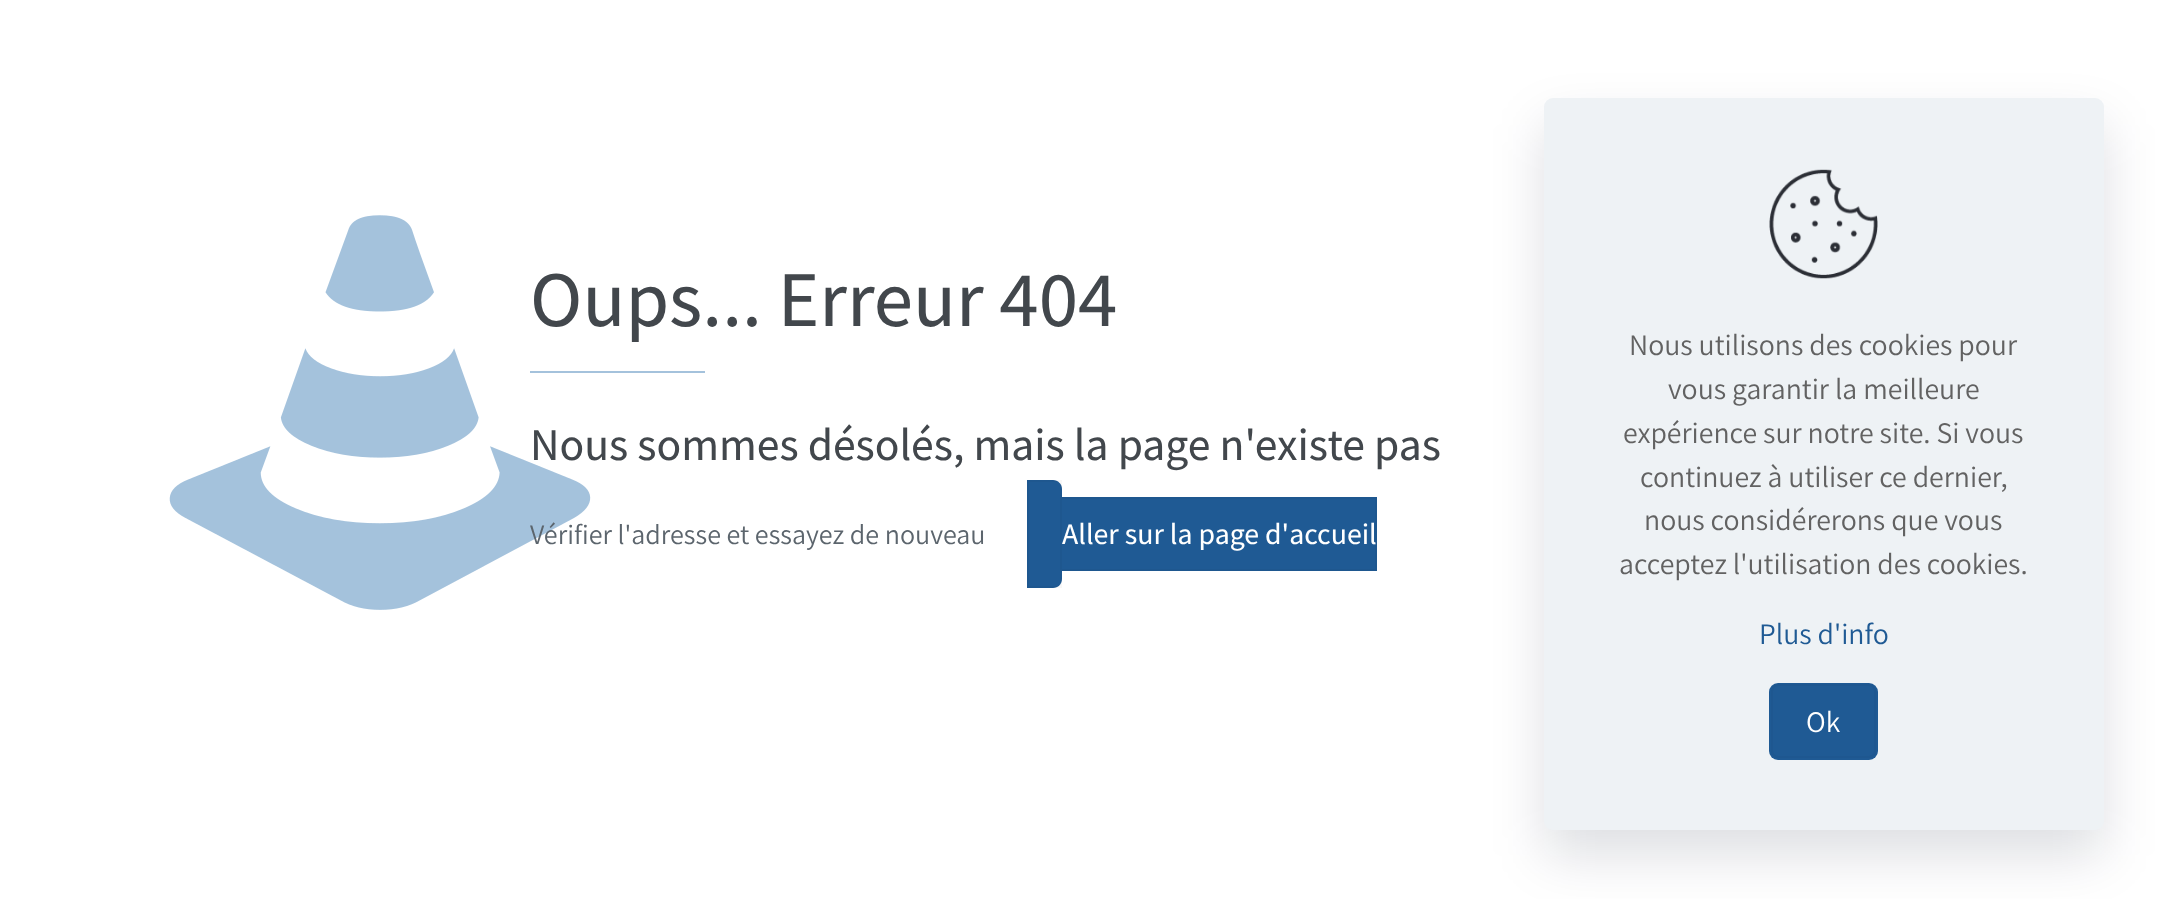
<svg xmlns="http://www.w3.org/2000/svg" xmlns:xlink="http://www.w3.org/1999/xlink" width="2173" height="899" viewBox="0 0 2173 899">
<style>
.cls-1{font:500 78.75px Assistant;fill:#42474c}
.cls-2{font:500 45.5px Assistant;fill:#42474c}
.cls-3{font:28px Assistant;fill:#5c656d}
.cls-4{font:500 29.75px Assistant;fill:#ffffff}
.cls-5{font:29.75px Assistant;fill:#626262}
.cls-6{font:29.75px Assistant;fill:#1f5a94}
.cls-7{font:29.75px Assistant;fill:#ffffff}
</style>
<rect width="100%" height="100%" fill="#ffffff"/>
<image xlink:href="image0.png" x="169" y="215" width="422" height="395"/>
<rect fill="#a4c2dc" x="530" y="371" width="175" height="2"/>
<rect fill="#1f5a94" x="1062" y="497" width="315" height="74"/>
<rect fill="none" stroke="#000000" stroke-opacity="0.03" stroke-width="2" x="1028" y="498" width="348" height="72"/>
<path fill="#1f5a94" d="M1027 480H1053C1058 480 1062 484 1062 489V579C1062 584 1058 588 1053 588H1027Z"/>
<rect fill="none" stroke="#000000" stroke-opacity="0.03" stroke-width="2" x="1028" y="481" width="33" height="106"/>
<rect fill="#010727" fill-opacity="0.13" filter="blur(26px)" x="1544" y="124" width="560" height="732" rx="9"/>
<rect fill="#eef2f5" x="1544" y="98" width="560" height="732" rx="9"/>
<image xlink:href="image1.png" x="1769" y="169" width="109" height="110"/>
<rect fill="#1f5a94" x="1769" y="683" width="109" height="77" rx="9"/>
<rect fill="none" stroke="#1e5790" stroke-width="2" x="1772" y="685" width="103" height="72" rx="6"/>
<text class="cls-1" x="530" y="326">Oups... Erreur 404</text>
<text class="cls-2" x="530" y="460">Nous sommes désolés, mais la page n'existe pas</text>
<text class="cls-3" x="530" y="544">Vérifier l'adresse et essayez de nouveau</text>
<text class="cls-4" x="1062" y="544">Aller sur la page d'accueil</text>
<text class="cls-5" x="1629" y="355">Nous utilisons des cookies pour</text>
<text class="cls-5" x="1668" y="399">vous garantir la meilleure</text>
<text class="cls-5" x="1623" y="443">expérience sur notre site. Si vous</text>
<text class="cls-5" x="1640" y="487">continuez à utiliser ce dernier,</text>
<text class="cls-5" x="1644" y="530">nous considérerons que vous</text>
<text class="cls-5" x="1619" y="574">acceptez l'utilisation des cookies.</text>
<text class="cls-6" x="1759" y="644">Plus d'info</text>
<text class="cls-7" x="1806" y="732">Ok</text>
</svg>
